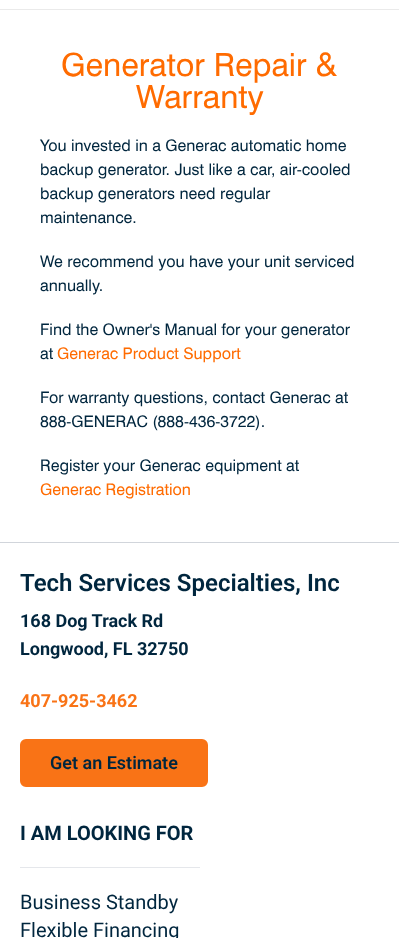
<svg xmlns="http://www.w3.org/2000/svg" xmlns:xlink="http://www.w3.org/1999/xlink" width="399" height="938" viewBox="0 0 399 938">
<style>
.cls-1{font:32px 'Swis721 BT';fill:#ff6b00}
.cls-2{font:16px 'Swis721 BT';fill:#00263e}
.cls-3{font:16px 'Swis721 BT';fill:#ff6b00}
.cls-4{font:600 24px Roboto;fill:#00263e}
.cls-5{font:bold 18px Roboto;fill:#00263e}
.cls-6{font:bold 18px Roboto;fill:#f97316}
.cls-7{font:600 18px Roboto;fill:#00263e}
.cls-8{font:bold 20px Roboto;fill:#00263e}
.cls-9{font:20px Roboto;fill:#00263e}
</style>
<rect width="100%" height="100%" fill="#ffffff"/>
<rect fill="#eaeaea" x="0" y="9" width="399" height="1"/>
<rect fill="#d1d5db" x="0" y="542" width="399" height="1"/>
<rect fill="#f97316" stroke="#f97316" stroke-width="2" x="21" y="740" width="186" height="46" rx="5"/>
<rect fill="#e5e7eb" x="20" y="867" width="180" height="1"/>
<text class="cls-1" x="61" y="76">Generator Repair &amp;</text>
<text class="cls-1" x="136" y="108">Warranty</text>
<text class="cls-2"><tspan x="40" y="151">You invested in a Generac automatic home</tspan><tspan x="40" y="175">backup generator. Just like a car, air-cooled</tspan><tspan x="40" y="199">backup generators need regular</tspan><tspan x="40" y="223">maintenance.</tspan></text>
<text class="cls-2"><tspan x="40" y="267">We recommend you have your unit serviced</tspan><tspan x="40" y="291">annually.</tspan></text>
<text class="cls-2"><tspan x="40" y="335">Find the Owner's Manual for your generator</tspan><tspan x="40" y="359">at</tspan></text>
<text class="cls-3" x="57" y="359">Generac Product Support</text>
<text class="cls-2"><tspan x="40" y="403">For warranty questions, contact Generac at</tspan><tspan x="40" y="427">888-GENERAC (888-436-3722).</tspan></text>
<text class="cls-2" x="40" y="471">Register your Generac equipment at</text>
<text class="cls-3" x="40" y="495">Generac Registration</text>
<text class="cls-4" x="20" y="591">Tech Services Specialties, Inc</text>
<text class="cls-5"><tspan x="20" y="627">168 Dog Track Rd</tspan><tspan x="20" y="655">Longwood, FL 32750</tspan></text>
<text class="cls-6" x="20" y="707">407-925-3462</text>
<text class="cls-7" x="50" y="769">Get an Estimate</text>
<text class="cls-8" x="20" y="840">I AM LOOKING FOR</text>
<text class="cls-9"><tspan x="20" y="909">Business Standby</tspan><tspan x="20" y="937">Flexible Financing</tspan></text>
</svg>
